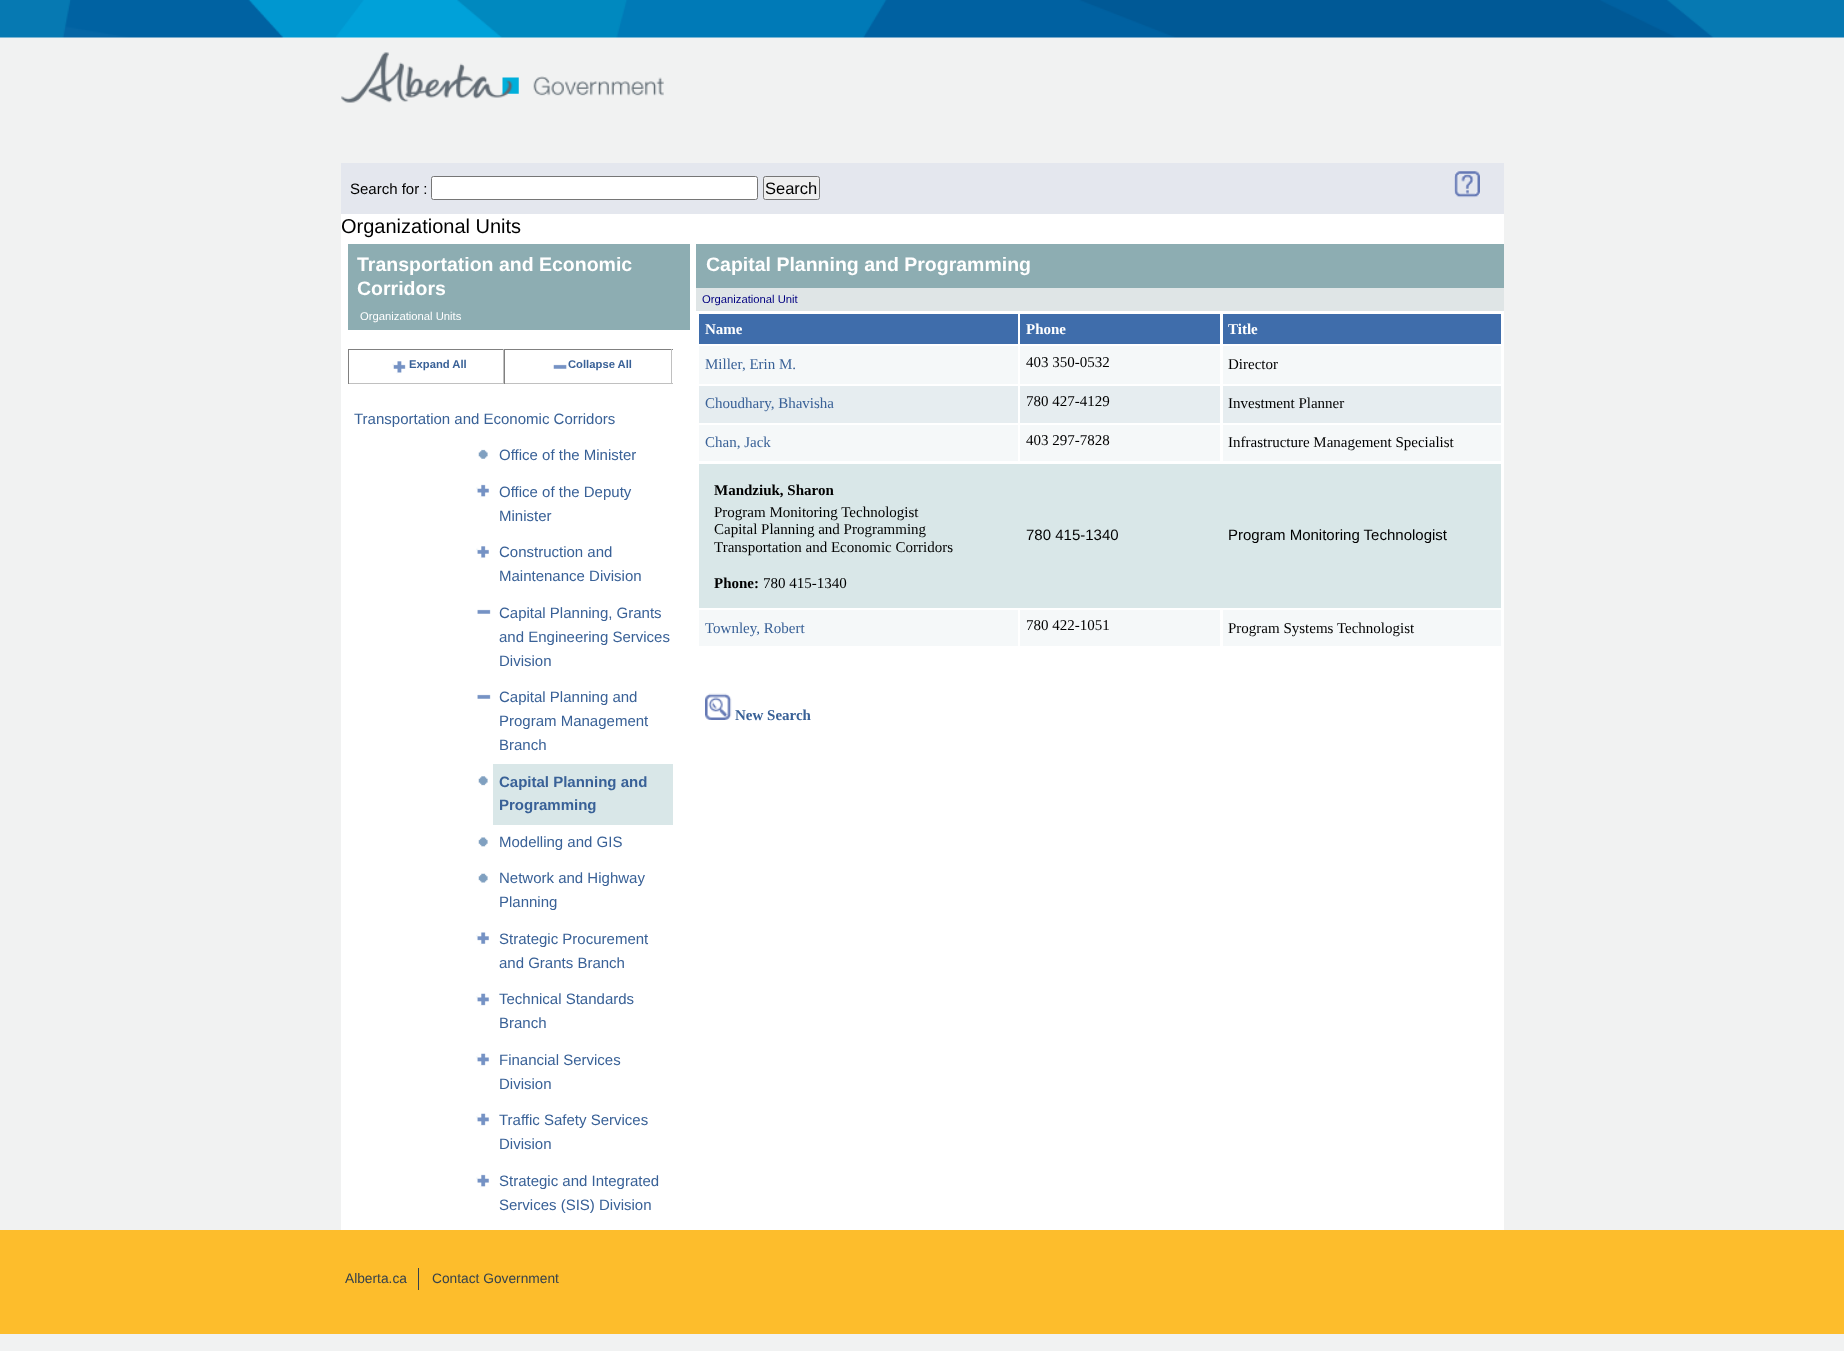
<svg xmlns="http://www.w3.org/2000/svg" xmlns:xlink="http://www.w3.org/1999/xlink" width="1844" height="1351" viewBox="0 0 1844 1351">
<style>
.cls-1{font:15px Liberation Sans;fill:#000000}
.cls-2{font:16.5px Liberation Sans;fill:#000000}
.cls-3{font:20px Liberation Sans;fill:#000000}
.cls-4{font:bold 19.5px Liberation Sans;fill:#ffffff}
.cls-5{font:11.25px Liberation Sans;fill:#ffffff}
.cls-6{font:bold 11.25px Liberation Sans;fill:#396197}
.cls-7{font:15px Liberation Sans;fill:#396197}
.cls-8{font:bold 15px Liberation Sans;fill:#396197}
.cls-9{font:11.25px Liberation Sans;fill:#000080}
.cls-10{font:bold 15px Liberation Serif;fill:#ffffff}
.cls-11{font:15px Liberation Serif;fill:#396197}
.cls-12{font:15px Liberation Serif;fill:#000000}
.cls-13{font:bold 15px Liberation Serif;fill:#000000}
.cls-14{font:bold 15px Liberation Serif;fill:#396197}
.cls-15{font:13.75px Liberation Sans;fill:#36424b}
</style>
<rect width="100%" height="100%" fill="#f1f2f2"/>
<image xlink:href="image0.png" x="0" y="0" width="1844" height="38"/>
<image xlink:href="image1.png" x="341" y="52" width="323" height="51"/>
<rect fill="#ffffff" x="341" y="214" width="1163" height="1016"/>
<rect fill="#e4e7ee" x="341" y="163" width="1163" height="51"/>
<rect fill="#ffffff" stroke="#767676" x="431.5" y="176.5" width="326" height="23" rx="2"/>
<rect fill="#efefef" stroke="#767676" x="763.5" y="176.5" width="56" height="23" rx="2"/>
<image xlink:href="image2.png" x="1454" y="171" width="26" height="27"/>
<rect fill="#8dadb2" x="348" y="244" width="342" height="86"/>
<rect fill="#808080" x="348" y="349" width="325" height="1"/>
<rect fill="#c0c0c0" x="503" y="349" width="1" height="35"/>
<rect fill="#c0c0c0" x="348" y="383" width="156" height="1"/>
<rect fill="#808080" x="348" y="349" width="1" height="35"/>
<image xlink:href="image3.png" x="392" y="361" width="14" height="13"/>
<rect fill="#c0c0c0" x="671" y="349" width="1" height="35"/>
<rect fill="#c0c0c0" x="504" y="383" width="169" height="1"/>
<rect fill="#808080" x="504" y="349" width="1" height="35"/>
<image xlink:href="image4.png" x="553" y="364" width="14" height="5"/>
<image xlink:href="image5.png" x="478" y="449" width="10" height="10"/>
<image xlink:href="image6.png" x="476" y="484" width="14" height="14"/>
<image xlink:href="image7.png" x="476" y="546" width="13" height="13"/>
<image xlink:href="image8.png" x="477" y="609" width="14" height="5"/>
<image xlink:href="image8.png" x="477" y="694" width="14" height="5"/>
<image xlink:href="image9.png" x="478" y="776" width="10" height="10"/>
<rect fill="#d9e7e8" x="493" y="764" width="180" height="61"/>
<image xlink:href="image10.png" x="478" y="837" width="10" height="10"/>
<image xlink:href="image11.png" x="478" y="873" width="10" height="10"/>
<image xlink:href="image12.png" x="476" y="932" width="13" height="13"/>
<image xlink:href="image13.png" x="476" y="993" width="14" height="13"/>
<image xlink:href="image13.png" x="476" y="1053" width="14" height="13"/>
<image xlink:href="image13.png" x="476" y="1113" width="14" height="13"/>
<image xlink:href="image14.png" x="476" y="1174" width="14" height="14"/>
<rect fill="#8dadb2" x="696" y="244" width="808" height="44"/>
<rect fill="#dfe5e6" x="696" y="288" width="808" height="23"/>
<rect fill="#3f6dab" x="699" y="314" width="319" height="30"/>
<rect fill="#3f6dab" x="1020" y="314" width="200" height="30"/>
<rect fill="#3f6dab" x="1223" y="314" width="278" height="30"/>
<rect fill="#f5f8f9" x="699" y="346" width="319" height="38"/>
<rect fill="#f5f8f9" x="1020" y="346" width="200" height="38"/>
<rect fill="#f5f8f9" x="1223" y="346" width="278" height="38"/>
<rect fill="#e6edf0" x="699" y="386" width="319" height="37"/>
<rect fill="#e6edf0" x="1020" y="386" width="200" height="37"/>
<rect fill="#e6edf0" x="1223" y="386" width="278" height="37"/>
<rect fill="#f5f8f9" x="699" y="425" width="319" height="36"/>
<rect fill="#f5f8f9" x="1020" y="425" width="200" height="36"/>
<rect fill="#f5f8f9" x="1223" y="425" width="278" height="36"/>
<rect fill="#d9e7e8" x="699" y="464" width="802" height="144"/>
<rect fill="#f5f8f9" x="699" y="610" width="319" height="36"/>
<rect fill="#f5f8f9" x="1020" y="610" width="200" height="36"/>
<rect fill="#f5f8f9" x="1223" y="610" width="278" height="36"/>
<image xlink:href="image15.png" x="705" y="693" width="27" height="27"/>
<rect fill="#fdbd2c" x="0" y="1230" width="1844" height="104"/>
<rect fill="#36424b" x="418" y="1268" width="1" height="22"/>
<text class="cls-1" x="350" y="194">Search for :</text>
<text class="cls-2" x="765" y="194">Search</text>
<text class="cls-3" x="341" y="233">Organizational Units</text>
<text class="cls-4"><tspan x="357" y="271">Transportation and Economic</tspan><tspan x="357" y="295">Corridors</tspan></text>
<text class="cls-5" x="360" y="320">Organizational Units</text>
<text class="cls-6" x="409" y="368">Expand All</text>
<text class="cls-6" x="568" y="368">Collapse All</text>
<text class="cls-7" x="354" y="424">Transportation and Economic Corridors</text>
<text class="cls-7" x="499" y="460">Office of the Minister</text>
<text class="cls-7"><tspan x="499" y="497">Office of the Deputy</tspan><tspan x="499" y="521">Minister</tspan></text>
<text class="cls-7"><tspan x="499" y="557">Construction and</tspan><tspan x="499" y="581">Maintenance Division</tspan></text>
<text class="cls-7"><tspan x="499" y="618">Capital Planning, Grants</tspan><tspan x="499" y="642">and Engineering Services</tspan><tspan x="499" y="666">Division</tspan></text>
<text class="cls-7"><tspan x="499" y="702">Capital Planning and</tspan><tspan x="499" y="726">Program Management</tspan><tspan x="499" y="750">Branch</tspan></text>
<text class="cls-8"><tspan x="499" y="787">Capital Planning and</tspan><tspan x="499" y="810">Programming</tspan></text>
<text class="cls-7" x="499" y="847">Modelling and GIS</text>
<text class="cls-7"><tspan x="499" y="883">Network and Highway</tspan><tspan x="499" y="907">Planning</tspan></text>
<text class="cls-7"><tspan x="499" y="944">Strategic Procurement</tspan><tspan x="499" y="968">and Grants Branch</tspan></text>
<text class="cls-7"><tspan x="499" y="1004">Technical Standards</tspan><tspan x="499" y="1028">Branch</tspan></text>
<text class="cls-7"><tspan x="499" y="1065">Financial Services</tspan><tspan x="499" y="1089">Division</tspan></text>
<text class="cls-7"><tspan x="499" y="1125">Traffic Safety Services</tspan><tspan x="499" y="1149">Division</tspan></text>
<text class="cls-7"><tspan x="499" y="1186">Strategic and Integrated</tspan><tspan x="499" y="1210">Services (SIS) Division</tspan></text>
<text class="cls-4" x="706" y="271">Capital Planning and Programming</text>
<text class="cls-9" x="702" y="303">Organizational Unit</text>
<text class="cls-10" x="705" y="334">Name</text>
<text class="cls-10" x="1026" y="334">Phone</text>
<text class="cls-10" x="1228" y="334">Title</text>
<text class="cls-11" x="705" y="369">Miller, Erin M.</text>
<text class="cls-12" x="1026" y="367">403 350-0532</text>
<text class="cls-12" x="1228" y="369">Director</text>
<text class="cls-11" x="705" y="408">Choudhary, Bhavisha</text>
<text class="cls-12" x="1026" y="406">780 427-4129</text>
<text class="cls-12" x="1228" y="408">Investment Planner</text>
<text class="cls-11" x="705" y="447">Chan, Jack</text>
<text class="cls-12" x="1026" y="445">403 297-7828</text>
<text class="cls-12" x="1228" y="447">Infrastructure Management Specialist</text>
<text class="cls-13" x="714" y="495">Mandziuk, Sharon</text>
<text class="cls-12"><tspan x="714" y="517">Program Monitoring Technologist</tspan><tspan x="714" y="534">Capital Planning and Programming</tspan><tspan x="714" y="552">Transportation and Economic Corridors</tspan></text>
<text class="cls-13" x="714" y="588">Phone:</text>
<text class="cls-12" x="763" y="588">780 415-1340</text>
<text class="cls-1" x="1026" y="540">780 415-1340</text>
<text class="cls-1" x="1228" y="540">Program Monitoring Technologist</text>
<text class="cls-11" x="705" y="633">Townley, Robert</text>
<text class="cls-12" x="1026" y="630">780 422-1051</text>
<text class="cls-12" x="1228" y="633">Program Systems Technologist</text>
<text class="cls-14" x="735" y="720">New Search</text>
<text class="cls-15" x="345" y="1283">Alberta.ca</text>
<text class="cls-15" x="432" y="1283">Contact Government</text>
</svg>
